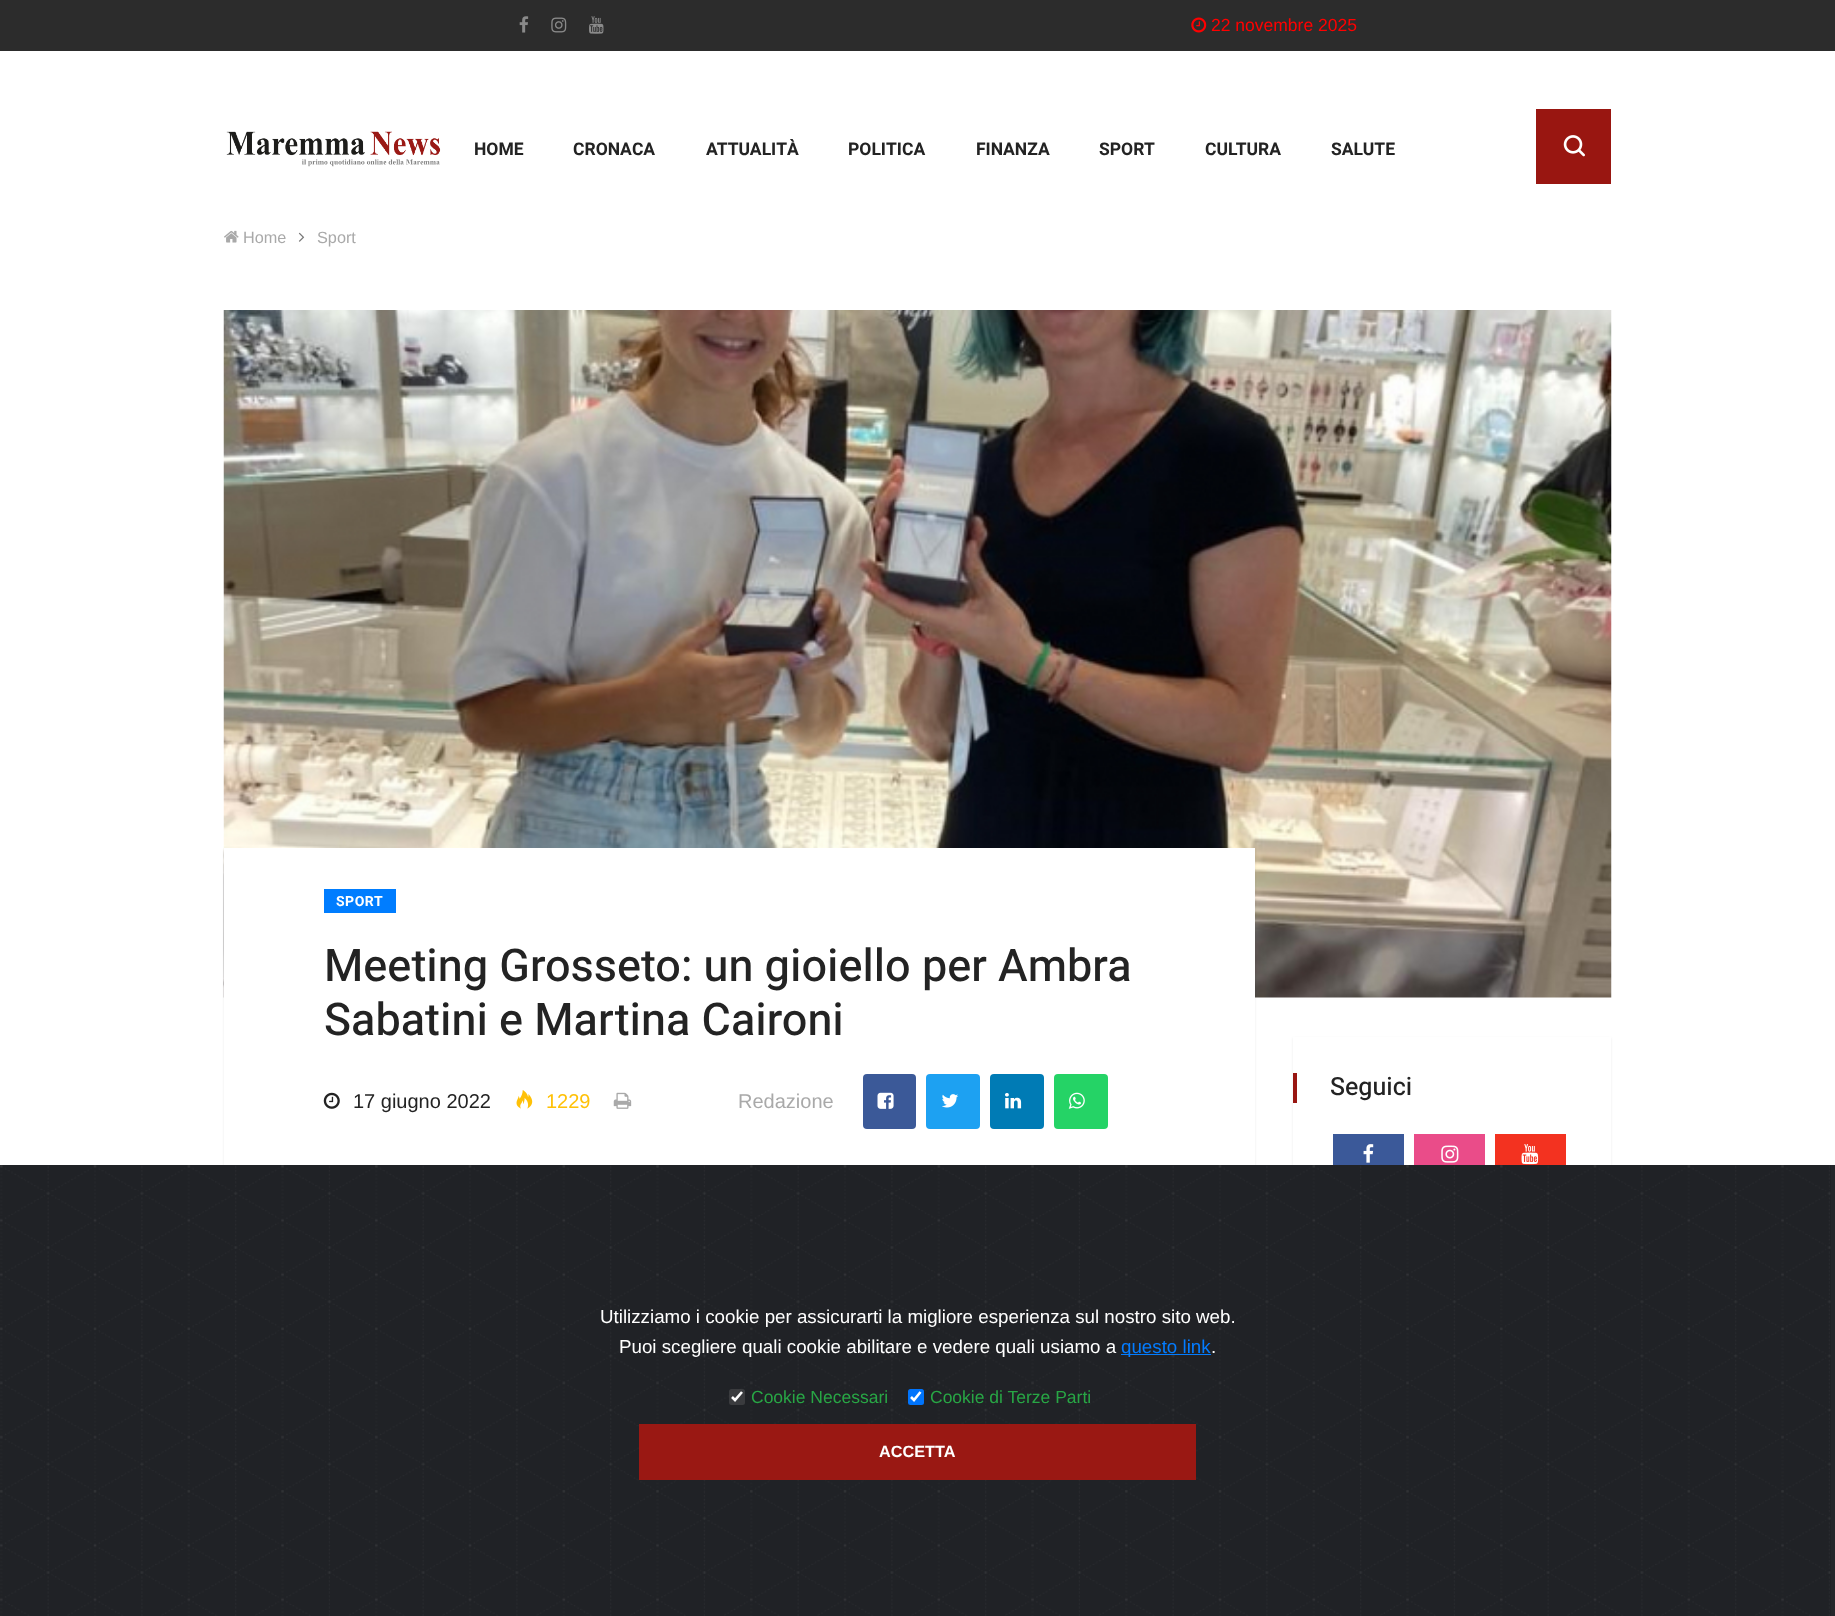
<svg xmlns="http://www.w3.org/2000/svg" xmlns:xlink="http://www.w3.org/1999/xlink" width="1835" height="1616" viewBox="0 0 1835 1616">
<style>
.cls-1{font:17.5px Arimo;fill:#ff0000}
.cls-2{font:bold 17.5px Heebo;fill:#232323}
.cls-3{font:16.25px Arimo;fill:#a9a9a9}
.cls-4{font:bold 14px Heebo;letter-spacing:0.5px;fill:#ffffff}
.cls-5{font:500 45px Heebo;fill:#232323}
.cls-6{font:20px Arimo;fill:#232323}
.cls-7{font:20px Arimo;fill:#ffc107}
.cls-8{font:20px Arimo;fill:#a9a9a9}
.cls-9{font:500 25px Heebo;fill:#232323}
.cls-10{font:18.75px Arimo;fill:#ffffff}
.cls-11{font:18.75px Arimo;fill:#037cff}
.cls-12{font:17.5px Arimo;fill:#28a645}
.cls-13{font:bold 16.25px Arimo;fill:#ffffff}
</style>
<rect width="100%" height="100%" fill="#ffffff"/>
<rect fill="#2c2c2c" x="0" y="0" width="1835" height="51"/>
<image xlink:href="image0.png" x="519" y="16" width="10" height="17"/>
<image xlink:href="image1.png" x="551" y="17" width="16" height="16"/>
<image xlink:href="image2.png" x="589" y="16" width="15" height="18"/>
<image xlink:href="image3.png" x="1191" y="17" width="16" height="16"/>
<image xlink:href="image4.png" x="226" y="131" width="215" height="36"/>
<rect fill="#991611" x="1536" y="109" width="75" height="75"/>
<image xlink:href="image5.png" x="1563" y="135" width="22" height="22"/>
<image xlink:href="image6.png" x="224" y="230" width="15" height="13"/>
<image xlink:href="image7.png" x="298" y="232" width="7" height="10"/>
<image xlink:href="image8.png" x="223" y="310" width="1389" height="688"/>
<rect fill="#000000" fill-opacity="0.08" filter="blur(1px)" x="224" y="850" width="1031" height="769"/>
<rect fill="#ffffff" x="224" y="848" width="1031" height="768"/>
<rect fill="#007dff" x="324" y="889" width="72" height="24"/>
<image xlink:href="image9.png" x="323" y="1092" width="17" height="17"/>
<image xlink:href="image10.png" x="516" y="1090" width="17" height="19"/>
<image xlink:href="image11.png" x="613" y="1092" width="19" height="17"/>
<rect fill="#3b5998" x="863" y="1074" width="53" height="55" rx="4"/>
<image xlink:href="image12.png" x="877" y="1092" width="17" height="17"/>
<rect fill="#1da1f2" x="926" y="1074" width="54" height="55" rx="4"/>
<image xlink:href="image13.png" x="942" y="1094" width="16" height="14"/>
<rect fill="#007bb5" x="990" y="1074" width="54" height="55" rx="4"/>
<image xlink:href="image14.png" x="1005" y="1093" width="17" height="16"/>
<rect fill="#25d366" x="1054" y="1074" width="54" height="55" rx="4"/>
<image xlink:href="image15.png" x="1068" y="1092" width="17" height="17"/>
<image xlink:href="image16.png" x="323" y="1485" width="832" height="131"/>
<rect fill="#000000" fill-opacity="0.08" filter="blur(1px)" x="1293" y="1038" width="318" height="187"/>
<rect fill="#ffffff" x="1293" y="1037" width="318" height="186"/>
<rect fill="#991611" x="1293" y="1073" width="4" height="30"/>
<rect fill="#3b5999" x="1333" y="1134" width="71" height="51"/>
<image xlink:href="image17.png" x="1363" y="1144" width="11" height="19"/>
<rect fill="#ea4c89" x="1414" y="1134" width="71" height="51"/>
<image xlink:href="image18.png" x="1441" y="1145" width="18" height="18"/>
<rect fill="#f33220" x="1495" y="1134" width="71" height="51"/>
<image xlink:href="image19.png" x="1521" y="1144" width="18" height="21"/>
<image xlink:href="image21.png" x="1735" y="1544" width="12" height="7"/>
<rect fill="#212327" fill-opacity="0.99" x="0" y="1165" width="1835" height="451"/>
<image xlink:href="image20.png" x="0" y="1165" width="1831" height="451"/>
<rect fill="#037cff" x="1121" y="1354" width="90" height="1"/>
<rect fill="#767676" fill-opacity="0.3" x="729" y="1389" width="16" height="16" rx="2.5"/>
<path fill="none" stroke="#fdfdfd" stroke-width="2.6" d="M732 1397L735 1400L742 1392"/>
<rect fill="#0075ff" fill-opacity="0.99" x="908" y="1389" width="16" height="16" rx="2.5"/>
<path fill="none" stroke="#fcfeff" stroke-width="2.6" d="M911 1397L914 1400L920.5 1392"/>
<rect fill="#9a1813" x="639" y="1424" width="557" height="56"/>
<text class="cls-1" x="1211" y="31">22 novembre 2025</text>
<text class="cls-2" x="474" y="155">HOME</text>
<text class="cls-2" x="573" y="155">CRONACA</text>
<text class="cls-2" x="706" y="155">ATTUALITÀ</text>
<text class="cls-2" x="848" y="155">POLITICA</text>
<text class="cls-2" x="976" y="155">FINANZA</text>
<text class="cls-2" x="1099" y="155">SPORT</text>
<text class="cls-2" x="1205" y="155">CULTURA</text>
<text class="cls-2" x="1331" y="155">SALUTE</text>
<text class="cls-3" x="243" y="243">Home</text>
<text class="cls-3" x="317" y="243">Sport</text>
<text class="cls-4" x="336" y="906">SPORT</text>
<text class="cls-5"><tspan x="324" y="981">Meeting Grosseto: un gioiello per Ambra</tspan><tspan x="324" y="1035">Sabatini e Martina Caironi</tspan></text>
<text class="cls-6" x="353" y="1108">17 giugno 2022</text>
<text class="cls-7" x="546" y="1108">1229</text>
<text class="cls-8" x="738" y="1108">Redazione</text>
<text class="cls-9" x="1330" y="1095">Seguici</text>
<text class="cls-10" x="600" y="1323">Utilizziamo i cookie per assicurarti la migliore esperienza sul nostro sito web.</text>
<text class="cls-10" x="619" y="1353">Puoi scegliere quali cookie abilitare e vedere quali usiamo a</text>
<text class="cls-11" x="1121" y="1353">questo link</text>
<text class="cls-10" x="1211" y="1353">.</text>
<text class="cls-12" x="751" y="1403">Cookie Necessari</text>
<text class="cls-12" x="930" y="1403">Cookie di Terze Parti</text>
<text class="cls-13" x="879" y="1457">ACCETTA</text>
</svg>
